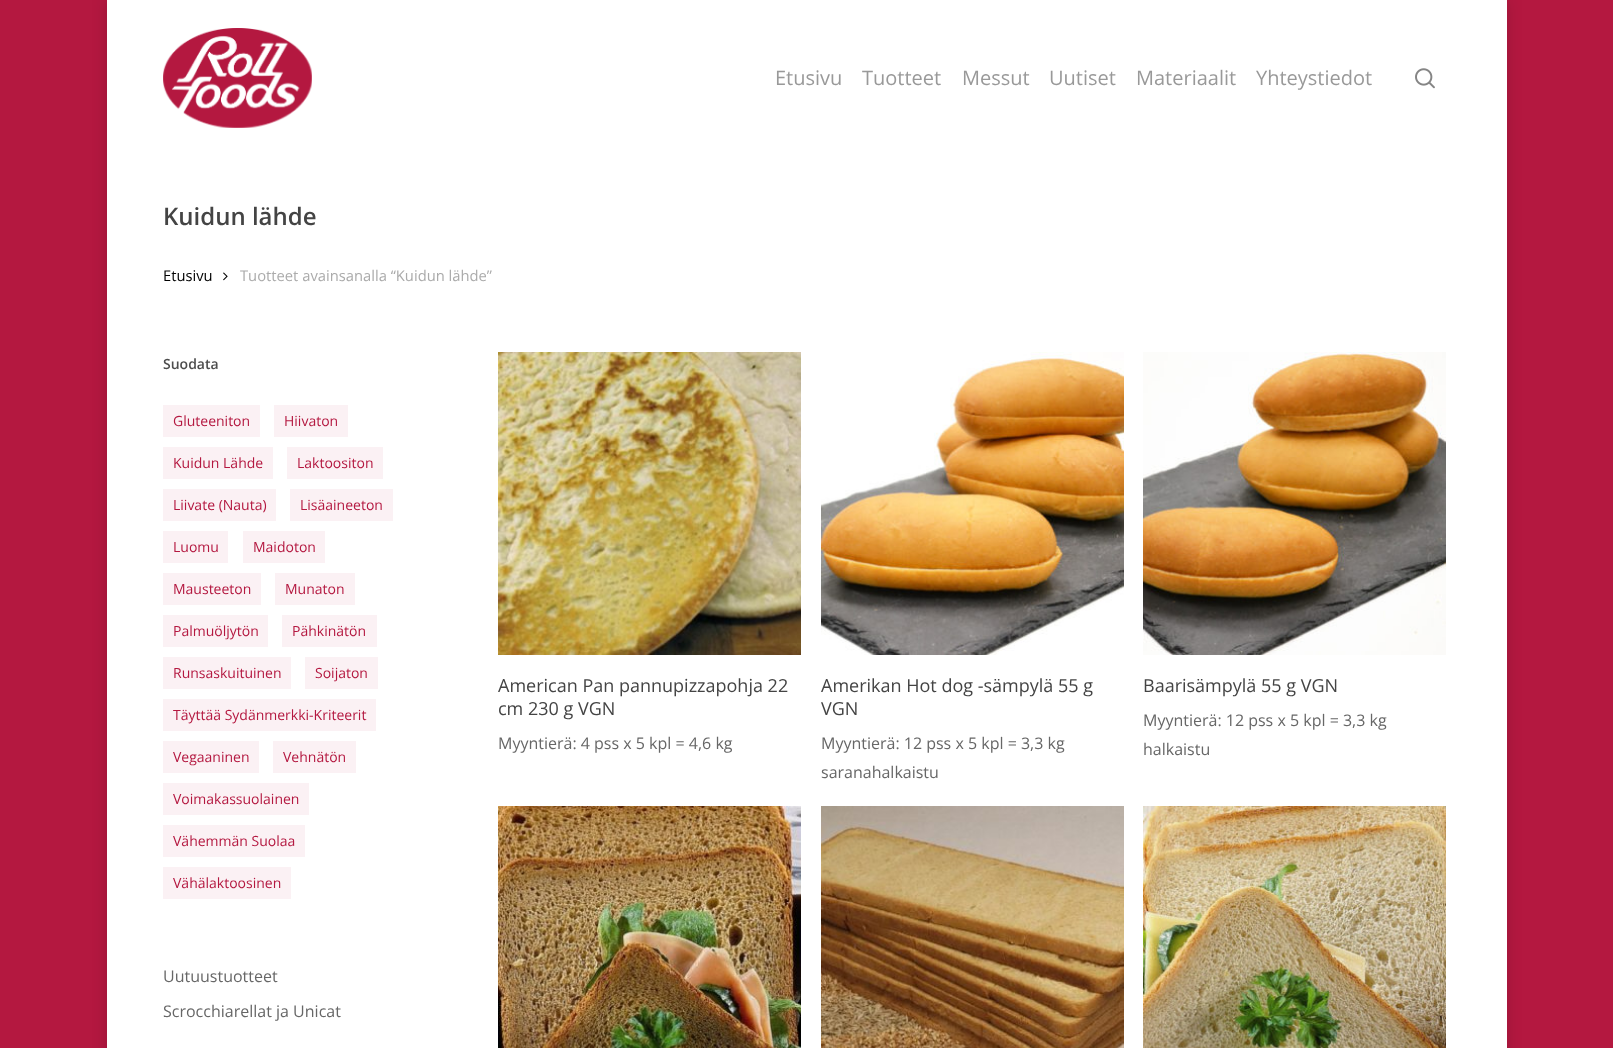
<svg xmlns="http://www.w3.org/2000/svg" xmlns:xlink="http://www.w3.org/1999/xlink" width="1613" height="1048" viewBox="0 0 1613 1048">
<style>
.cls-1{font:20px Open Sans;fill:#999999}
.cls-2{font:600 24px Open Sans;fill:#444444}
.cls-3{font:14.75px Open Sans;fill:#000000}
.cls-4{font:14.75px Open Sans;fill:#ababab}
.cls-5{font:600 14px Open Sans;fill:#4d4d4d}
.cls-6{font:14px Open Sans;fill:#b41840}
.cls-7{font:16px Open Sans;fill:#676767}
.cls-8{font:18px Open Sans;fill:#444444}
</style>
<rect width="100%" height="100%" fill="#b41840"/>
<rect fill="#000000" fill-opacity="0.15" filter="blur(7.5px)" x="107" y="0" width="1400" height="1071"/>
<rect fill="#ffffff" x="107" y="0" width="1400" height="1048"/>
<image xlink:href="image0.png" x="163" y="28" width="149" height="100"/>
<image xlink:href="image1.png" x="1415" y="68" width="20" height="21"/>
<image xlink:href="image2.png" x="223" y="272" width="5" height="9"/>
<rect fill="#b41840" fill-opacity="0.06" x="163" y="405" width="97" height="32"/>
<rect fill="#b41840" fill-opacity="0.06" x="274" y="405" width="74" height="32"/>
<rect fill="#b41840" fill-opacity="0.06" x="163" y="447" width="110" height="32"/>
<rect fill="#b41840" fill-opacity="0.06" x="287" y="447" width="96" height="32"/>
<rect fill="#b41840" fill-opacity="0.06" x="163" y="489" width="113" height="32"/>
<rect fill="#b41840" fill-opacity="0.06" x="290" y="489" width="103" height="32"/>
<rect fill="#b41840" fill-opacity="0.06" x="163" y="531" width="65" height="32"/>
<rect fill="#b41840" fill-opacity="0.06" x="243" y="531" width="82" height="32"/>
<rect fill="#b41840" fill-opacity="0.06" x="163" y="573" width="98" height="32"/>
<rect fill="#b41840" fill-opacity="0.06" x="275" y="573" width="80" height="32"/>
<rect fill="#b41840" fill-opacity="0.06" x="163" y="615" width="105" height="32"/>
<rect fill="#b41840" fill-opacity="0.06" x="282" y="615" width="95" height="32"/>
<rect fill="#b41840" fill-opacity="0.06" x="163" y="657" width="128" height="32"/>
<rect fill="#b41840" fill-opacity="0.06" x="305" y="657" width="73" height="32"/>
<rect fill="#b41840" fill-opacity="0.06" x="163" y="699" width="213" height="32"/>
<rect fill="#b41840" fill-opacity="0.06" x="163" y="741" width="96" height="32"/>
<rect fill="#b41840" fill-opacity="0.06" x="273" y="741" width="83" height="32"/>
<rect fill="#b41840" fill-opacity="0.06" x="163" y="783" width="146" height="32"/>
<rect fill="#b41840" fill-opacity="0.06" x="163" y="825" width="142" height="32"/>
<rect fill="#b41840" fill-opacity="0.06" x="163" y="867" width="128" height="32"/>
<image xlink:href="image3.png" x="498" y="352" width="303" height="303"/>
<image xlink:href="image4.png" x="821" y="352" width="303" height="303"/>
<image xlink:href="image5.png" x="1143" y="352" width="303" height="303"/>
<image xlink:href="image6.png" x="498" y="806" width="303" height="242"/>
<image xlink:href="image7.png" x="821" y="806" width="303" height="242"/>
<image xlink:href="image8.png" x="1143" y="806" width="303" height="242"/>
<text class="cls-1" x="775" y="85">Etusivu</text>
<text class="cls-1" x="862" y="85">Tuotteet</text>
<text class="cls-1" x="962" y="85">Messut</text>
<text class="cls-1" x="1049" y="85">Uutiset</text>
<text class="cls-1" x="1136" y="85">Materiaalit</text>
<text class="cls-1" x="1256" y="85">Yhteystiedot</text>
<text class="cls-2" x="163" y="225">Kuidun lähde</text>
<text class="cls-3" x="163" y="281">Etusivu</text>
<text class="cls-4" x="240" y="281">Tuotteet avainsanalla “Kuidun lähde”</text>
<text class="cls-5" x="163" y="369">Suodata</text>
<text class="cls-6" x="173" y="426">Gluteeniton</text>
<text class="cls-6" x="284" y="426">Hiivaton</text>
<text class="cls-6" x="173" y="468">Kuidun Lähde</text>
<text class="cls-6" x="297" y="468">Laktoositon</text>
<text class="cls-6" x="173" y="510">Liivate (Nauta)</text>
<text class="cls-6" x="300" y="510">Lisäaineeton</text>
<text class="cls-6" x="173" y="552">Luomu</text>
<text class="cls-6" x="253" y="552">Maidoton</text>
<text class="cls-6" x="173" y="594">Mausteeton</text>
<text class="cls-6" x="285" y="594">Munaton</text>
<text class="cls-6" x="173" y="636">Palmuöljytön</text>
<text class="cls-6" x="292" y="636">Pähkinätön</text>
<text class="cls-6" x="173" y="678">Runsaskuituinen</text>
<text class="cls-6" x="315" y="678">Soijaton</text>
<text class="cls-6" x="173" y="720">Täyttää Sydänmerkki-Kriteerit</text>
<text class="cls-6" x="173" y="762">Vegaaninen</text>
<text class="cls-6" x="283" y="762">Vehnätön</text>
<text class="cls-6" x="173" y="804">Voimakassuolainen</text>
<text class="cls-6" x="173" y="846">Vähemmän Suolaa</text>
<text class="cls-6" x="173" y="888">Vähälaktoosinen</text>
<text class="cls-7" x="163" y="982">Uutuustuotteet</text>
<text class="cls-7" x="163" y="1017">Scrocchiarellat ja Unicat</text>
<text class="cls-8"><tspan x="498" y="692">American Pan pannupizzapohja 22</tspan><tspan x="498" y="715">cm 230 g VGN</tspan></text>
<text class="cls-7" x="498" y="749">Myyntierä: 4 pss x 5 kpl = 4,6 kg</text>
<text class="cls-8"><tspan x="821" y="692">Amerikan Hot dog -sämpylä 55 g</tspan><tspan x="821" y="715">VGN</tspan></text>
<text class="cls-7"><tspan x="821" y="749">Myyntierä: 12 pss x 5 kpl = 3,3 kg</tspan><tspan x="821" y="778">saranahalkaistu</tspan></text>
<text class="cls-8" x="1143" y="692">Baarisämpylä 55 g VGN</text>
<text class="cls-7"><tspan x="1143" y="726">Myyntierä: 12 pss x 5 kpl = 3,3 kg</tspan><tspan x="1143" y="755">halkaistu</tspan></text>
</svg>
